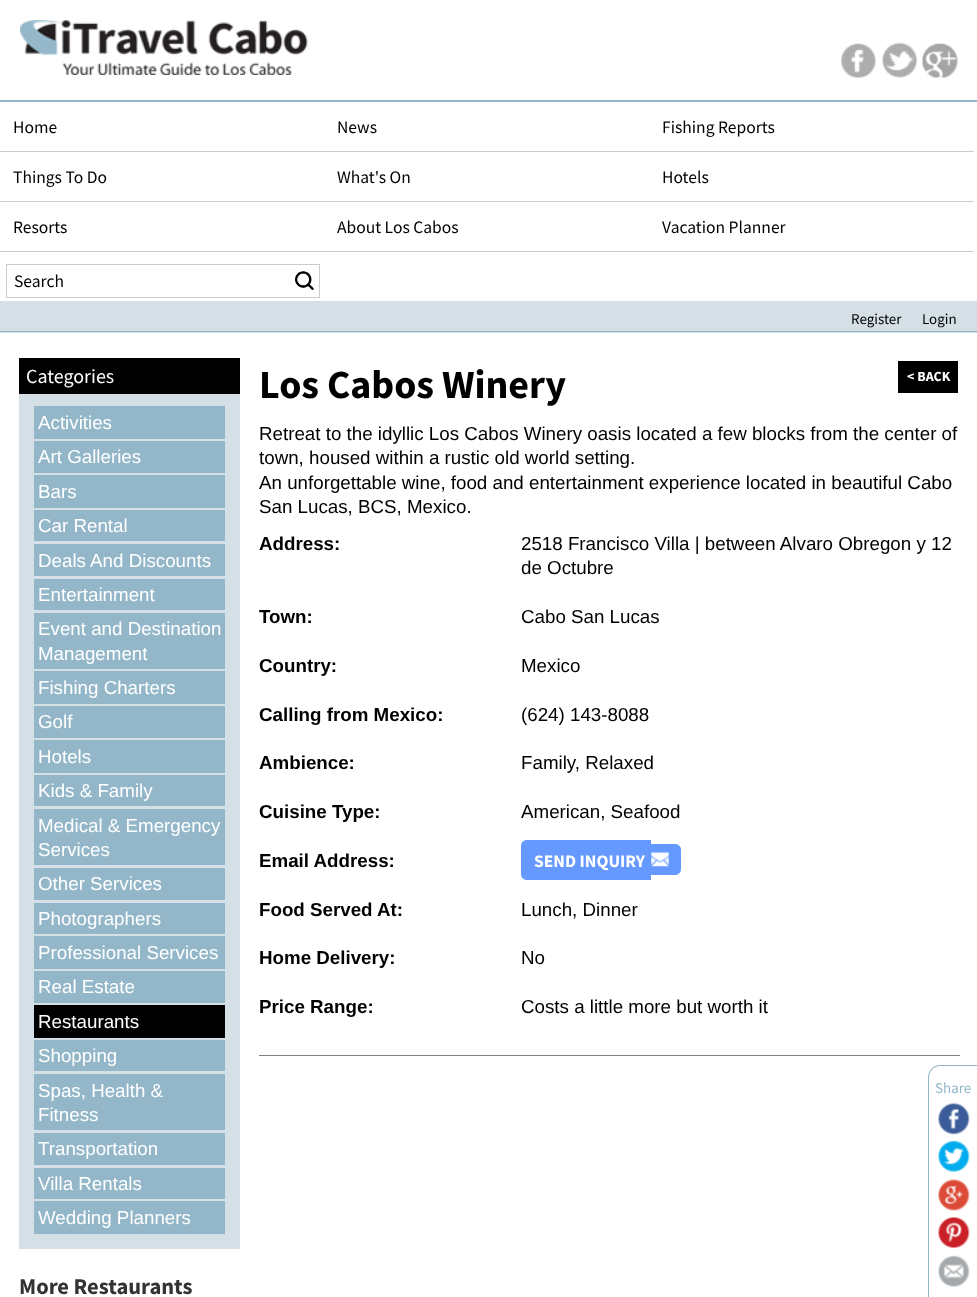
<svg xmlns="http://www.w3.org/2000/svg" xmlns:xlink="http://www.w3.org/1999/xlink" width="977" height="1297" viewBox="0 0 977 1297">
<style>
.cls-1{font:17.5px Source Sans Pro;fill:#000000}
.cls-2{font:15px Source Sans Pro;fill:#000000}
.cls-3{font:20px Source Sans Pro;fill:#ffffff}
.cls-4{font:18.75px Liberation Sans;fill:#ffffff}
.cls-5{font:bold 22.5px Source Sans Pro;fill:#333333}
.cls-6{font:bold 40px Source Sans Pro;fill:#000000}
.cls-7{font:bold 14px Source Sans Pro;fill:#ffffff}
.cls-8{font:18.75px Liberation Sans;fill:#000000}
.cls-9{font:bold 18.75px Liberation Sans;fill:#000000}
.cls-10{font:bold 17.5px Source Sans Pro;fill:#ffffff}
.cls-11{font:15px Source Sans Pro;fill:#93b7c9}
</style>
<rect width="100%" height="100%" fill="#ffffff"/>
<image xlink:href="image0.png" x="20" y="20" width="288" height="55"/>
<image xlink:href="image1.png" x="841" y="43" width="36" height="35"/>
<image xlink:href="image2.png" x="882" y="42" width="36" height="36"/>
<image xlink:href="image3.png" x="922" y="43" width="36" height="35"/>
<rect fill="#93b7c9" x="0" y="100" width="977" height="2"/>
<rect fill="#cccccc" x="0" y="151" width="974" height="1"/>
<rect fill="#cccccc" x="0" y="201" width="974" height="1"/>
<rect fill="#cccccc" x="0" y="251" width="974" height="1"/>
<rect fill="none" stroke="#cccccc" x="6.5" y="264.5" width="313" height="33"/>
<image xlink:href="image4.png" x="295" y="271" width="19" height="19"/>
<rect fill="#d4e0e5" x="0" y="301" width="977" height="32"/>
<rect fill="#93b7c9" x="0" y="331" width="977" height="1"/>
<rect fill="#d4e0e5" x="19" y="394" width="221" height="855"/>
<rect fill="#000000" x="19" y="358" width="221" height="36"/>
<rect fill="#93b7c9" x="34" y="406" width="191" height="33"/>
<rect fill="#93b7c9" x="34" y="441" width="191" height="32"/>
<rect fill="#93b7c9" x="34" y="475" width="191" height="33"/>
<rect fill="#93b7c9" x="34" y="510" width="191" height="31"/>
<rect fill="#93b7c9" x="34" y="544" width="191" height="32"/>
<rect fill="#93b7c9" x="34" y="579" width="191" height="31"/>
<rect fill="#93b7c9" x="34" y="613" width="191" height="56"/>
<rect fill="#93b7c9" x="34" y="671" width="191" height="33"/>
<rect fill="#93b7c9" x="34" y="706" width="191" height="32"/>
<rect fill="#93b7c9" x="34" y="740" width="191" height="33"/>
<rect fill="#93b7c9" x="34" y="775" width="191" height="31"/>
<rect fill="#93b7c9" x="34" y="809" width="191" height="56"/>
<rect fill="#93b7c9" x="34" y="868" width="191" height="32"/>
<rect fill="#93b7c9" x="34" y="903" width="191" height="31"/>
<rect fill="#93b7c9" x="34" y="936" width="191" height="33"/>
<rect fill="#93b7c9" x="34" y="971" width="191" height="32"/>
<rect fill="#000000" x="34" y="1005" width="191" height="33"/>
<rect fill="#93b7c9" x="34" y="1040" width="191" height="31"/>
<rect fill="#93b7c9" x="34" y="1074" width="191" height="56"/>
<rect fill="#93b7c9" x="34" y="1133" width="191" height="32"/>
<rect fill="#93b7c9" x="34" y="1168" width="191" height="31"/>
<rect fill="#93b7c9" x="34" y="1201" width="191" height="33"/>
<rect fill="#000000" x="898" y="361" width="60" height="32"/>
<path fill="#6699ff" d="M527 840H651V880H527C523.5 880 521 877.5 521 874V846C521 842.5 523.5 840 527 840Z"/>
<path fill="#6699ff" d="M651 844H675C678.5 844 681 846.5 681 850V869C681 872.5 678.5 875 675 875H651Z"/>
<image xlink:href="image5.png" x="651" y="852" width="18" height="15"/>
<path fill="#93b7c9" fill-rule="evenodd" d="M940 1065H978V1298H928V1078C928 1071 933 1065 940 1065ZM940 1066H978V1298H929V1078C929 1071 934 1066 940 1066Z"/>
<image xlink:href="image6.png" x="938" y="1103" width="32" height="32"/>
<image xlink:href="image7.png" x="938" y="1140" width="32" height="32"/>
<image xlink:href="image8.png" x="938" y="1179" width="32" height="32"/>
<image xlink:href="image9.png" x="938" y="1217" width="32" height="31"/>
<image xlink:href="image10.png" x="938" y="1255" width="32" height="32"/>
<rect fill="#808080" x="259" y="1055" width="701" height="1"/>
<text class="cls-1" x="13" y="133">Home</text>
<text class="cls-1" x="337" y="133">News</text>
<text class="cls-1" x="662" y="133">Fishing Reports</text>
<text class="cls-1" x="13" y="183">Things To Do</text>
<text class="cls-1" x="337" y="183">What's On</text>
<text class="cls-1" x="662" y="183">Hotels</text>
<text class="cls-1" x="13" y="233">Resorts</text>
<text class="cls-1" x="337" y="233">About Los Cabos</text>
<text class="cls-1" x="662" y="233">Vacation Planner</text>
<text class="cls-1" x="14" y="287">Search</text>
<text class="cls-2" x="851" y="324">Register</text>
<text class="cls-2" x="922" y="324">Login</text>
<text class="cls-3" x="26" y="383">Categories</text>
<text class="cls-4"><tspan x="38" y="429">Activities</tspan><tspan x="38" y="463">Art Galleries</tspan><tspan x="38" y="498">Bars</tspan><tspan x="38" y="532">Car Rental</tspan><tspan x="38" y="567">Deals And Discounts</tspan><tspan x="38" y="601">Entertainment</tspan><tspan x="38" y="635">Event and Destination</tspan><tspan x="38" y="660">Management</tspan><tspan x="38" y="694">Fishing Charters</tspan><tspan x="38" y="728">Golf</tspan><tspan x="38" y="763">Hotels</tspan><tspan x="38" y="797">Kids &amp; Family</tspan><tspan x="38" y="832">Medical &amp; Emergency</tspan><tspan x="38" y="856">Services</tspan><tspan x="38" y="890">Other Services</tspan><tspan x="38" y="925">Photographers</tspan><tspan x="38" y="959">Professional Services</tspan><tspan x="38" y="993">Real Estate</tspan><tspan x="38" y="1028">Restaurants</tspan><tspan x="38" y="1062">Shopping</tspan><tspan x="38" y="1097">Spas, Health &amp;</tspan><tspan x="38" y="1121">Fitness</tspan><tspan x="38" y="1155">Transportation</tspan><tspan x="38" y="1190">Villa Rentals</tspan><tspan x="38" y="1224">Wedding Planners</tspan></text>
<text class="cls-5" x="19" y="1294">More Restaurants</text>
<text class="cls-6" x="259" y="398">Los Cabos Winery</text>
<text class="cls-7" x="907" y="381">&lt; BACK</text>
<text class="cls-8"><tspan x="259" y="440">Retreat to the idyllic Los Cabos Winery oasis located a few blocks from the center of</tspan><tspan x="259" y="464">town, housed within a rustic old world setting.</tspan><tspan x="259" y="489">An unforgettable wine, food and entertainment experience located in beautiful Cabo</tspan><tspan x="259" y="513">San Lucas, BCS, Mexico.</tspan></text>
<text class="cls-9" x="259" y="550">Address:</text>
<text class="cls-8"><tspan x="521" y="550">2518 Francisco Villa | between Alvaro Obregon y 12</tspan><tspan x="521" y="574">de Octubre</tspan></text>
<text class="cls-9" x="259" y="623">Town:</text>
<text class="cls-8" x="521" y="623">Cabo San Lucas</text>
<text class="cls-9" x="259" y="672">Country:</text>
<text class="cls-8" x="521" y="672">Mexico</text>
<text class="cls-9" x="259" y="721">Calling from Mexico:</text>
<text class="cls-8" x="521" y="721">(624) 143-8088</text>
<text class="cls-9" x="259" y="769">Ambience:</text>
<text class="cls-8" x="521" y="769">Family, Relaxed</text>
<text class="cls-9" x="259" y="818">Cuisine Type:</text>
<text class="cls-8" x="521" y="818">American, Seafood</text>
<text class="cls-9" x="259" y="867">Email Address:</text>
<text class="cls-10" x="534" y="867">SEND INQUIRY</text>
<text class="cls-9" x="259" y="916">Food Served At:</text>
<text class="cls-8" x="521" y="916">Lunch, Dinner</text>
<text class="cls-9" x="259" y="964">Home Delivery:</text>
<text class="cls-8" x="521" y="964">No</text>
<text class="cls-9" x="259" y="1013">Price Range:</text>
<text class="cls-8" x="521" y="1013">Costs a little more but worth it</text>
<text class="cls-11" x="935" y="1093">Share</text>
</svg>
